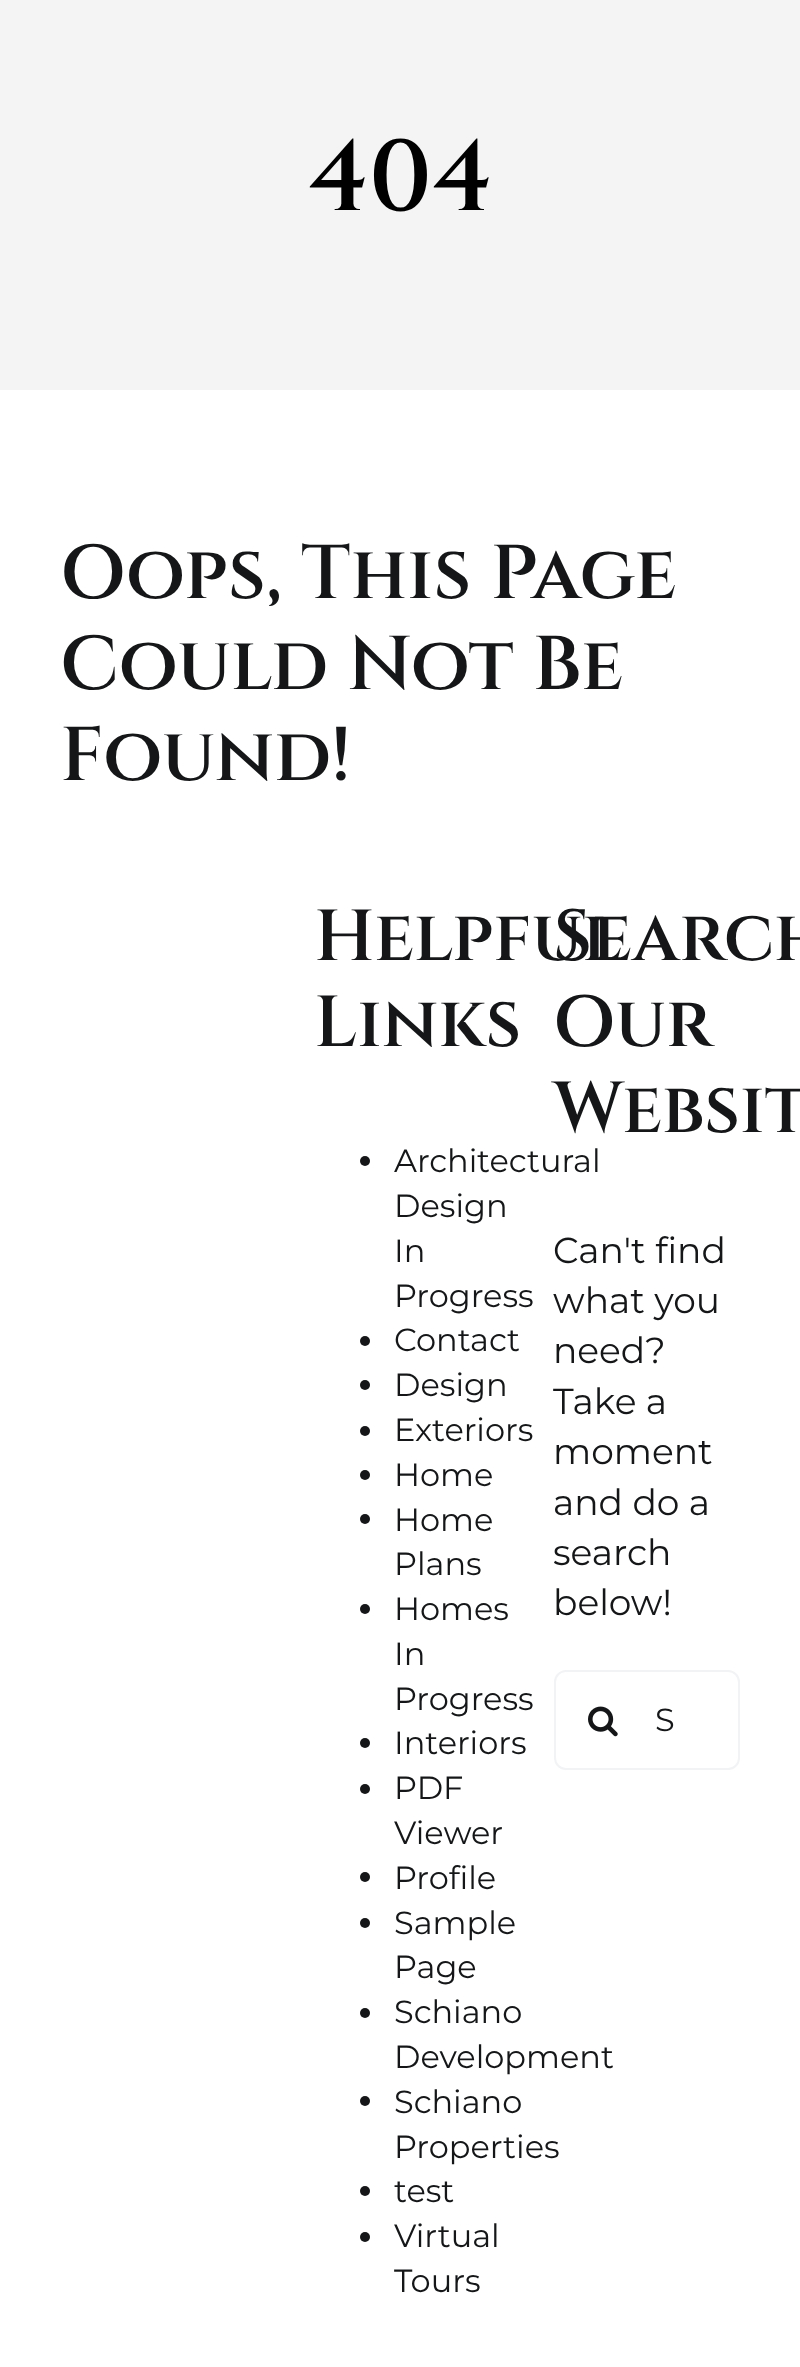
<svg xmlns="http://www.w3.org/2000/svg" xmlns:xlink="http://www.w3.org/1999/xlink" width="800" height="2367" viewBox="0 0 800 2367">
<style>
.cls-1{font:600 100px Cinzel;fill:#000000}
.cls-2{font:600 76px Cinzel;fill:#141617}
.cls-3{font:600 72px Cinzel;fill:#141617}
.cls-4{font:32px Montserrat;fill:#141617}
.cls-5{font:36px Montserrat;fill:#141617}
</style>
<rect width="100%" height="100%" fill="#ffffff"/>
<rect fill="#f4f4f4" x="0" y="0" width="800" height="390"/>
<circle fill="#141617" cx="365" cy="1161" r="5"/>
<circle fill="#141617" cx="365" cy="1341" r="5"/>
<circle fill="#141617" cx="365" cy="1385" r="5"/>
<circle fill="#141617" cx="365" cy="1431" r="5"/>
<circle fill="#141617" cx="365" cy="1475" r="5"/>
<circle fill="#141617" cx="365" cy="1519" r="5"/>
<circle fill="#141617" cx="365" cy="1609" r="5"/>
<circle fill="#141617" cx="365" cy="1743" r="5"/>
<circle fill="#141617" cx="365" cy="1789" r="5"/>
<circle fill="#141617" cx="365" cy="1877" r="5"/>
<circle fill="#141617" cx="365" cy="1923" r="5"/>
<circle fill="#141617" cx="365" cy="2013" r="5"/>
<circle fill="#141617" cx="365" cy="2101" r="5"/>
<circle fill="#141617" cx="365" cy="2191" r="5"/>
<circle fill="#141617" cx="365" cy="2237" r="5"/>
<rect fill="none" stroke="#f2f3f5" stroke-width="2" x="555" y="1671" width="184" height="98" rx="11"/>
<image xlink:href="image0.png" x="588" y="1706" width="30" height="31"/>
<text class="cls-1" x="308" y="210">404</text>
<text class="cls-2"><tspan x="60" y="598">Oops, This Page</tspan><tspan x="60" y="689">Could Not Be</tspan><tspan x="60" y="780">Found!</tspan></text>
<text class="cls-3"><tspan x="314" y="960">Helpful</tspan><tspan x="314" y="1046">Links</tspan></text>
<text class="cls-4"><tspan x="394" y="1172">Architectural</tspan><tspan x="394" y="1217">Design</tspan><tspan x="394" y="1262">In</tspan><tspan x="394" y="1307">Progress</tspan><tspan x="394" y="1351">Contact</tspan><tspan x="394" y="1396">Design</tspan><tspan x="394" y="1441">Exteriors</tspan><tspan x="394" y="1486">Home</tspan><tspan x="394" y="1531">Home</tspan><tspan x="394" y="1575">Plans</tspan><tspan x="394" y="1620">Homes</tspan><tspan x="394" y="1665">In</tspan><tspan x="394" y="1710">Progress</tspan><tspan x="394" y="1754">Interiors</tspan><tspan x="394" y="1799">PDF</tspan><tspan x="394" y="1844">Viewer</tspan><tspan x="394" y="1889">Profile</tspan><tspan x="394" y="1934">Sample</tspan><tspan x="394" y="1978">Page</tspan><tspan x="394" y="2023">Schiano</tspan><tspan x="394" y="2068">Development</tspan><tspan x="394" y="2113">Schiano</tspan><tspan x="394" y="2158">Properties</tspan><tspan x="394" y="2202">test</tspan><tspan x="394" y="2247">Virtual</tspan><tspan x="394" y="2292">Tours</tspan></text>
<text class="cls-3"><tspan x="553" y="960">Search</tspan><tspan x="553" y="1046">Our</tspan><tspan x="553" y="1132">Websit</tspan></text>
<text class="cls-5"><tspan x="553" y="1263">Can't find</tspan><tspan x="553" y="1313">what you</tspan><tspan x="553" y="1363">need?</tspan><tspan x="553" y="1414">Take a</tspan><tspan x="553" y="1464">moment</tspan><tspan x="553" y="1515">and do a</tspan><tspan x="553" y="1565">search</tspan><tspan x="553" y="1615">below!</tspan></text>
<text class="cls-4" x="655" y="1731">S</text>
</svg>
